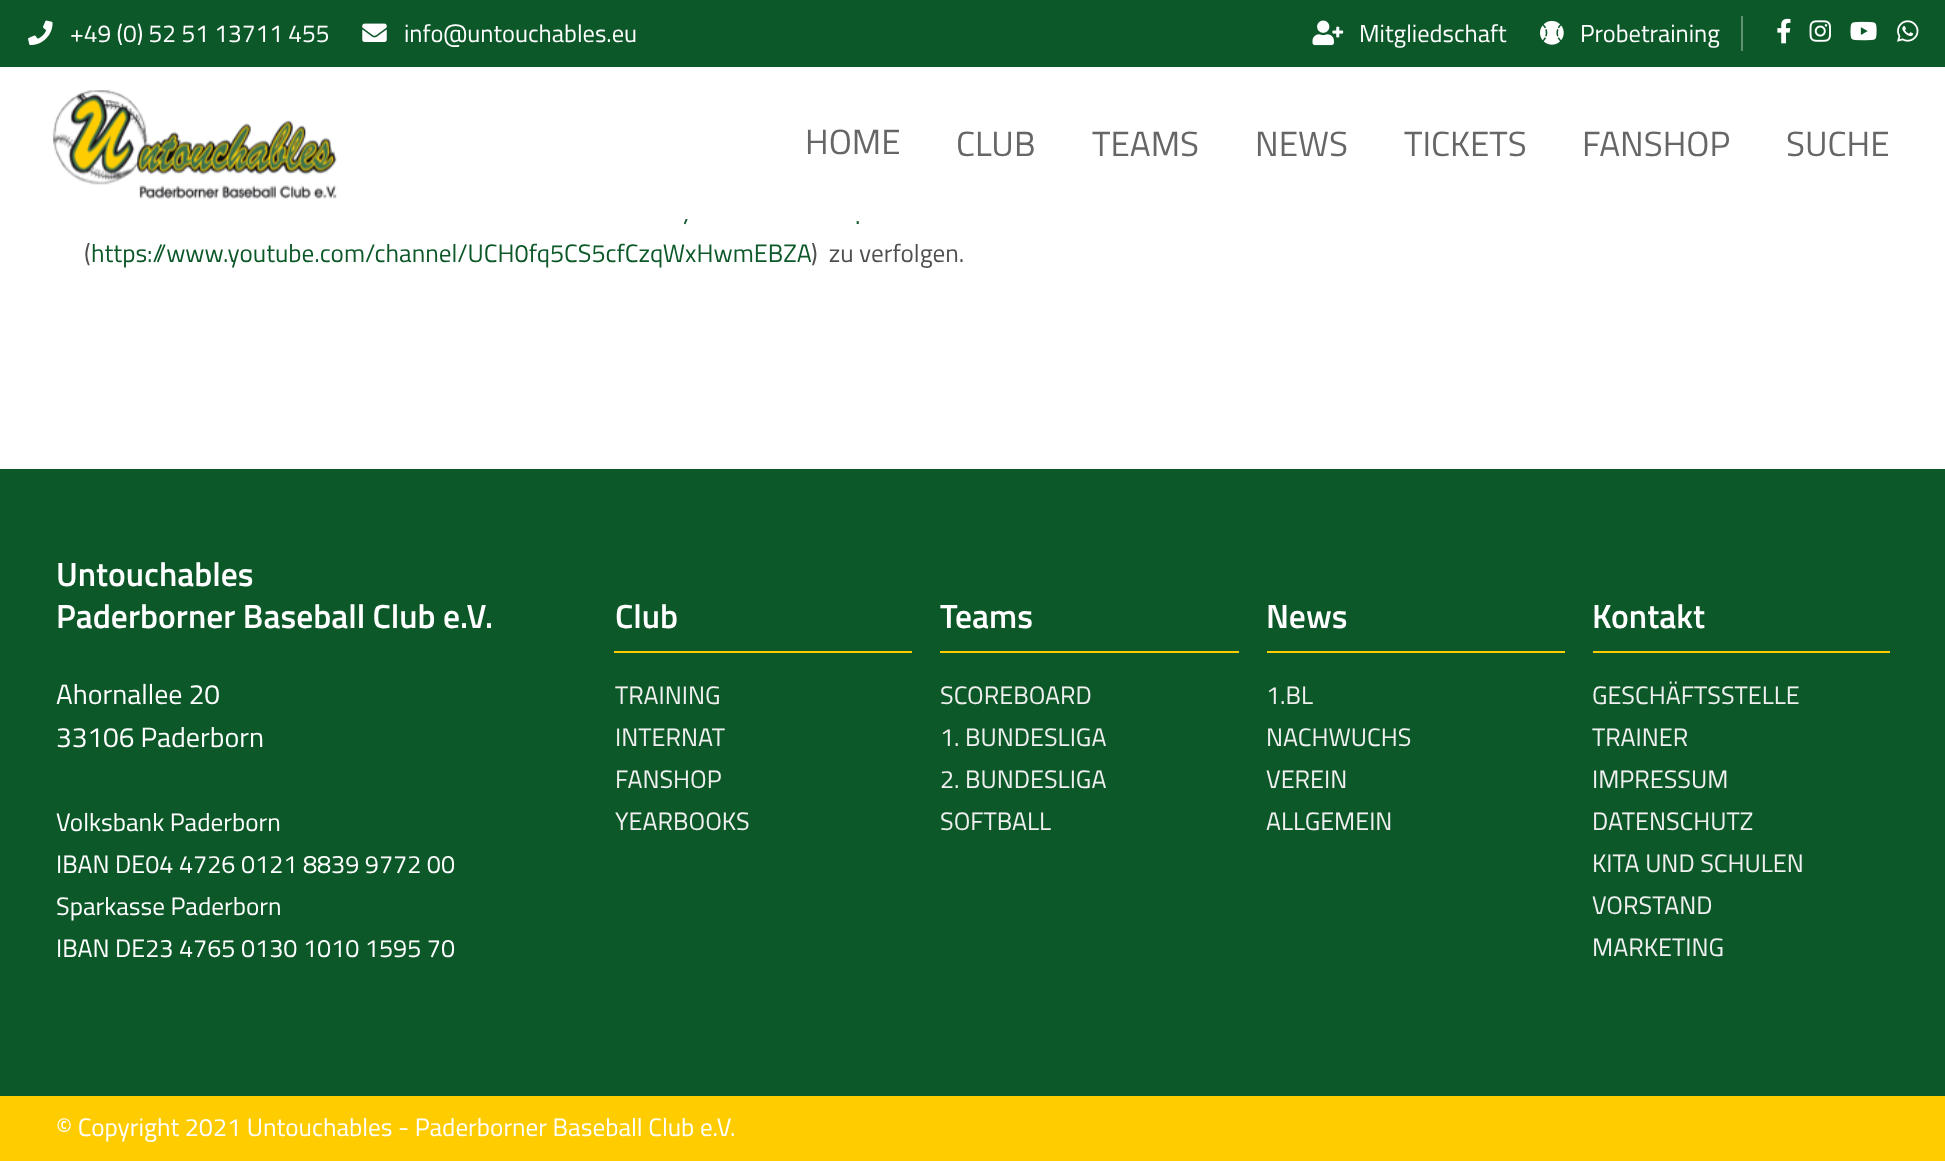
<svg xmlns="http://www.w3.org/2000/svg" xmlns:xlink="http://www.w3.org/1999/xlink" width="1945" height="1161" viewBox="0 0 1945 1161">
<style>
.cls-1{font:24.5px Titillium Web;fill:#ffffff}
.cls-2{font:35px Titillium Web;fill:#666666}
.cls-3{font:25.2px Titillium Web;fill:#0c5828}
.cls-4{font:25.2px Titillium Web;fill:#505050}
.cls-5{font:600 33.6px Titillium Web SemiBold;fill:#ffffff}
.cls-6{font:28px Titillium Web;fill:#ffffff}
.cls-7{font:25.2px Titillium Web;fill:#ffffff}
.cls-8{font:25.2px Titillium Web;fill:#f0f0f0}
</style>
<rect width="100%" height="100%" fill="#ffffff"/>
<rect fill="#0c5828" x="0" y="0" width="1945" height="67"/>
<image xlink:href="image0.png" x="28" y="20" width="25" height="26"/>
<image xlink:href="image1.png" x="362" y="23" width="25" height="19"/>
<image xlink:href="image2.png" x="1312" y="20" width="32" height="26"/>
<image xlink:href="image3.png" x="1540" y="20" width="24" height="25"/>
<rect fill="#619273" x="1741" y="16" width="2" height="35"/>
<image xlink:href="image4.png" x="1777" y="18" width="14" height="26"/>
<image xlink:href="image5.png" x="1809" y="20" width="22" height="22"/>
<image xlink:href="image6.png" x="1850" y="21" width="27" height="20"/>
<image xlink:href="image7.png" x="1897" y="20" width="22" height="22"/>
<image xlink:href="image8.png" x="53" y="90" width="284" height="109"/>
<rect fill="#0c5828" x="0" y="469" width="1945" height="627"/>
<rect fill="#ffcc00" x="614" y="651" width="298" height="2"/>
<rect fill="#ffcc00" x="940" y="651" width="299" height="2"/>
<rect fill="#ffcc00" x="1267" y="651" width="298" height="2"/>
<rect fill="#ffcc00" x="1593" y="651" width="297" height="2"/>
<rect fill="#ffcc00" x="0" y="1096" width="1945" height="65"/>
<text class="cls-1" x="70" y="42">+49 (0) 52 51 13711 455</text>
<text class="cls-1" x="404" y="42">info@untouchables.eu</text>
<text class="cls-1" x="1359" y="42">Mitgliedschaft</text>
<text class="cls-1" x="1580" y="42">Probetraining</text>
<text class="cls-2" x="805" y="154">HOME</text>
<text class="cls-2" x="956" y="156">CLUB</text>
<text class="cls-2" x="1092" y="156">TEAMS</text>
<text class="cls-2" x="1255" y="156">NEWS</text>
<text class="cls-2" x="1404" y="156">TICKETS</text>
<text class="cls-2" x="1582" y="156">FANSHOP</text>
<text class="cls-2" x="1786" y="156">SUCHE</text>
<text class="cls-3" x="683" y="224">/</text>
<rect fill="#ffffff" x="685" y="206" width="8" height="13"/>
<text class="cls-3" x="855" y="224">.</text>
<text class="cls-4" x="84" y="262">(</text>
<text class="cls-3" x="91" y="262">https://www.youtube.com/channel/UCH0fq5CS5cfCzqWxHwmEBZA</text>
<text class="cls-4" xml:space="preserve" x="811" y="262">)  zu verfolgen.</text>
<text class="cls-5"><tspan x="56" y="586">Untouchables</tspan><tspan x="56" y="628">Paderborner Baseball Club e.V.</tspan></text>
<text class="cls-6"><tspan x="56" y="704">Ahornallee 20</tspan><tspan x="56" y="747">33106 Paderborn</tspan></text>
<text class="cls-7"><tspan x="56" y="831">Volksbank Paderborn</tspan><tspan x="56" y="873">IBAN DE04 4726 0121 8839 9772 00</tspan><tspan x="56" y="915">Sparkasse Paderborn</tspan><tspan x="56" y="957">IBAN DE23 4765 0130 1010 1595 70</tspan></text>
<text class="cls-5" x="615" y="628">Club</text>
<text class="cls-8"><tspan x="615" y="704">TRAINING</tspan><tspan x="615" y="746">INTERNAT</tspan><tspan x="615" y="788">FANSHOP</tspan><tspan x="615" y="830">YEARBOOKS</tspan></text>
<text class="cls-5" x="940" y="628">Teams</text>
<text class="cls-8"><tspan x="940" y="704">SCOREBOARD</tspan><tspan x="940" y="746">1. BUNDESLIGA</tspan><tspan x="940" y="788">2. BUNDESLIGA</tspan><tspan x="940" y="830">SOFTBALL</tspan></text>
<text class="cls-5" x="1266" y="628">News</text>
<text class="cls-8"><tspan x="1266" y="704">1.BL</tspan><tspan x="1266" y="746">NACHWUCHS</tspan><tspan x="1266" y="788">VEREIN</tspan><tspan x="1266" y="830">ALLGEMEIN</tspan></text>
<text class="cls-5" x="1592" y="628">Kontakt</text>
<text class="cls-8"><tspan x="1592" y="704">GESCHÄFTSSTELLE</tspan><tspan x="1592" y="746">TRAINER</tspan><tspan x="1592" y="788">IMPRESSUM</tspan><tspan x="1592" y="830">DATENSCHUTZ</tspan><tspan x="1592" y="872">KITA UND SCHULEN</tspan><tspan x="1592" y="914">VORSTAND</tspan><tspan x="1592" y="956">MARKETING</tspan></text>
<text class="cls-7" x="56" y="1136">© Copyright 2021 Untouchables - Paderborner Baseball Club e.V.</text>
</svg>
